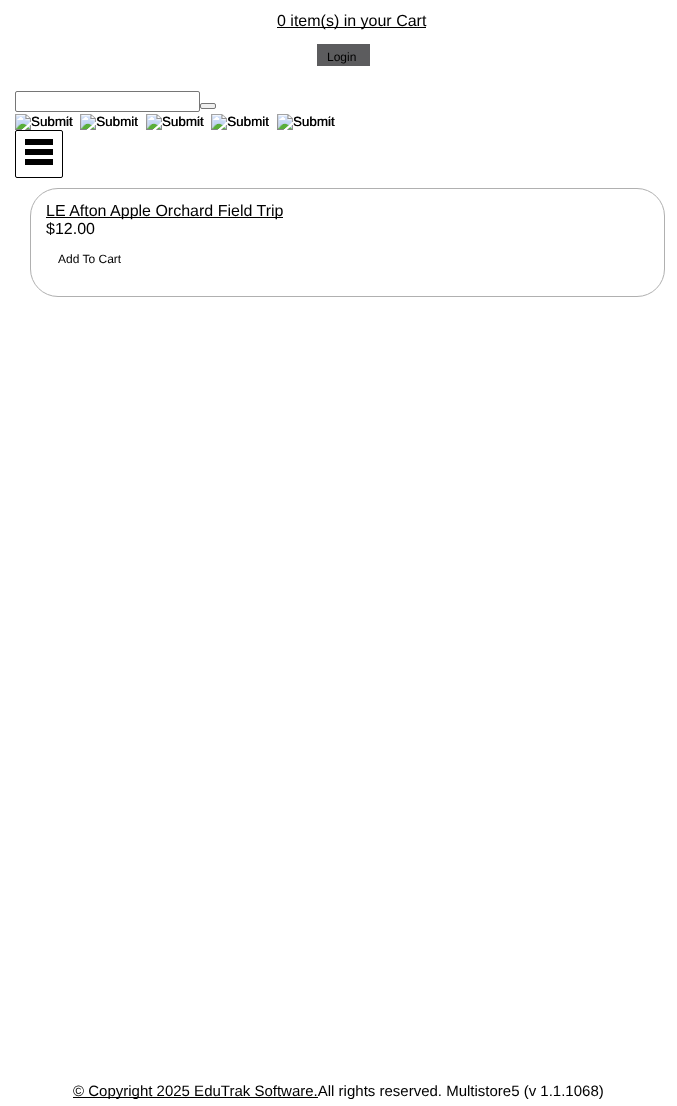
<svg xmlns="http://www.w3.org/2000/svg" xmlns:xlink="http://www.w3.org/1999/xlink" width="677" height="1106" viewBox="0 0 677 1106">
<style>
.cls-1{font:16px Liberation Sans;fill:#000000}
.cls-2{font:12px Liberation Sans;fill:#000000}
.cls-3{font:13.5px Liberation Sans;fill:#000000}
.cls-4{font:15px Liberation Sans;fill:#000000}
</style>
<rect width="100%" height="100%" fill="#ffffff"/>
<rect fill="#000000" x="277" y="27" width="149" height="1"/>
<rect fill="#5c5c5e" x="317" y="44" width="53" height="22"/>
<rect fill="none" stroke="#767676" x="15.5" y="91.5" width="184" height="20" rx="1.5"/>
<rect fill="#efefef" stroke="#767676" x="200.5" y="103.5" width="15" height="5" rx="1.5"/>
<image xlink:href="image0.png" x="15" y="114" width="57" height="16"/>
<image xlink:href="image1.png" x="80" y="114" width="58" height="16"/>
<image xlink:href="image2.png" x="146" y="114" width="57" height="16"/>
<image xlink:href="image1.png" x="211" y="114" width="58" height="16"/>
<image xlink:href="image2.png" x="277" y="114" width="57" height="16"/>
<rect fill="none" stroke="#000000" x="15.5" y="130.5" width="47" height="47" rx="1.5"/>
<image xlink:href="image3.png" x="25" y="139" width="28" height="26"/>
<rect fill="none" stroke="#b0b0b0" x="30.5" y="188.5" width="634" height="108" rx="27.5"/>
<rect fill="#000000" x="46" y="217" width="237" height="1"/>
<rect fill="#000000" x="73" y="1097" width="245" height="1"/>
<text class="cls-1" x="277" y="26">0 item(s) in your Cart</text>
<text class="cls-2" x="327" y="61">Login</text>
<text class="cls-3" x="31" y="126">Submit</text>
<text class="cls-3" x="96" y="126">Submit</text>
<text class="cls-3" x="162" y="126">Submit</text>
<text class="cls-3" x="227" y="126">Submit</text>
<text class="cls-3" x="293" y="126">Submit</text>
<text class="cls-1"><tspan x="46" y="216">LE Afton Apple Orchard Field Trip</tspan><tspan x="46" y="234">$12.00</tspan></text>
<text class="cls-2" x="58" y="263">Add To Cart</text>
<text class="cls-4" x="73" y="1096">© Copyright 2025 EduTrak Software.All rights reserved. Multistore5 (v 1.1.1068)</text>
</svg>
